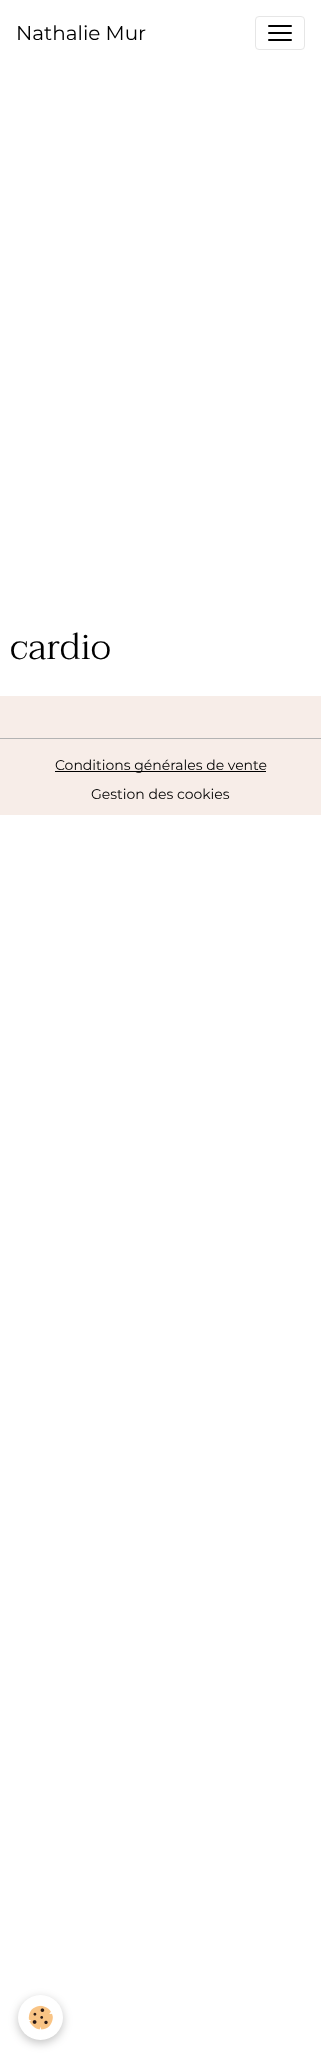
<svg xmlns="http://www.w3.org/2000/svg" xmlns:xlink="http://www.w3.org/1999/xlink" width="321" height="2058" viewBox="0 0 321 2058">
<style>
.cls-1{font:20px Montserrat;fill:#000000}
.cls-2{font:300 37px Taviraj;fill:#000000}
.cls-3{font:14px Montserrat;fill:#000000}
</style>
<rect width="100%" height="100%" fill="#ffffff"/>
<rect fill="none" stroke="#e6e6e6" x="255.5" y="16.5" width="49" height="33" rx="3.5"/>
<rect fill="#000000" x="268" y="25" width="24" height="2" rx="1"/>
<rect fill="#000000" x="268" y="32" width="24" height="2" rx="1"/>
<rect fill="#000000" x="268" y="39" width="24" height="2" rx="1"/>
<rect fill="#f7ede8" x="0" y="696" width="321" height="119"/>
<rect fill="#b3b3b3" x="0" y="738" width="321" height="1"/>
<rect fill="#000000" x="55" y="771" width="211" height="1"/>
<rect fill="#000000" fill-opacity="0.24" filter="blur(5px)" x="18" y="1998" width="45" height="45" rx="22.5"/>
<circle fill="#ffffff" cx="40.5" cy="2017.5" r="22.5"/>
<image xlink:href="image0.png" x="28" y="2005" width="25" height="25"/>
<text class="cls-1" x="16" y="40">Nathalie Mur</text>
<text class="cls-2" x="10" y="659">cardio</text>
<text class="cls-3" x="55" y="770">Conditions générales de vente</text>
<text class="cls-3" x="91" y="799">Gestion des cookies</text>
</svg>
